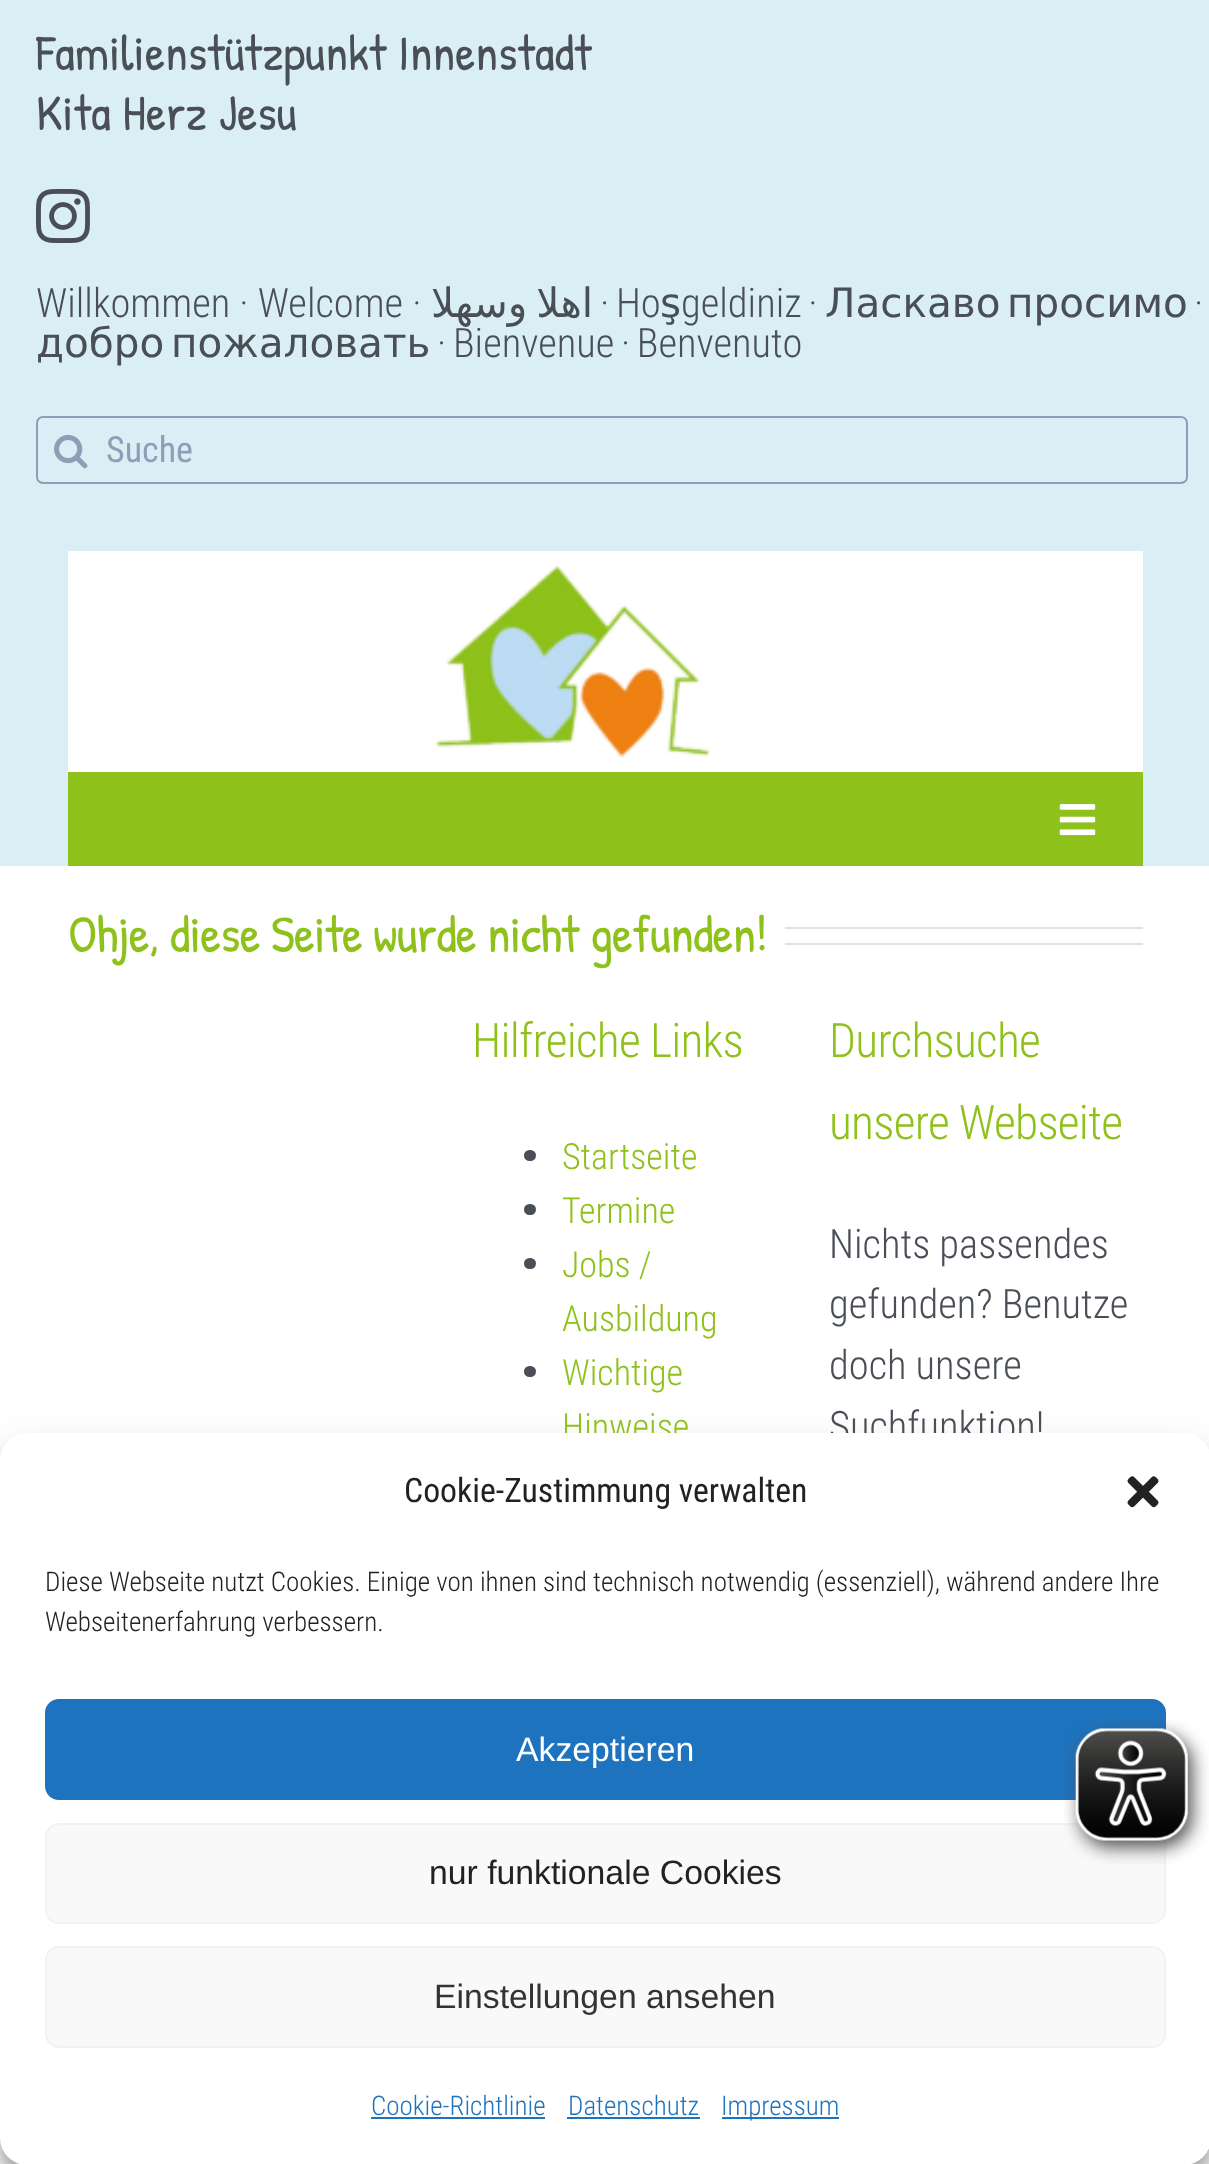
<svg xmlns="http://www.w3.org/2000/svg" xmlns:xlink="http://www.w3.org/1999/xlink" width="1209" height="2164" viewBox="0 0 1209 2164">
<style>
.cls-1{font:50.4px Patrick Hand;fill:#4a4e57}
.cls-2{font:300 40.5px Roboto Condensed;fill:#4a4e57}
.cls-3{font:40.5px DejaVu Sans;direction:rtl;fill:#4a4e57}
.cls-4{font:40.5px DejaVu Sans;fill:#4a4e57}
.cls-5{font:36px Roboto Condensed;fill:#8f9eb7}
.cls-6{font:52.25px Patrick Hand;letter-spacing:-0.8px;fill:#8ec11a}
.cls-7{font:300 47.5px Roboto Condensed;letter-spacing:-0.75px;fill:#8ec11a}
.cls-8{font:300 36px Roboto Condensed;fill:#8ec11a}
.cls-9{font:33.75px Roboto Condensed;fill:#222222}
.cls-10{font:300 27px Roboto Condensed;fill:#222222}
.cls-11{font:33.75px Liberation Sans;fill:#ffffff}
.cls-12{font:33.75px Liberation Sans;fill:#222222}
.cls-13{font:33.75px Liberation Sans;fill:#333333}
.cls-14{font:300 27px Roboto Condensed;fill:#1e73be}
</style>
<rect width="100%" height="100%" fill="#ffffff"/>
<rect fill="#daeff5" x="0" y="0" width="1209" height="243"/>
<image xlink:href="image0.png" x="36" y="189" width="54" height="54"/>
<rect fill="#daeff5" x="0" y="243" width="1209" height="623"/>
<rect fill="#ffffff" x="68" y="551" width="1075" height="221"/>
<image xlink:href="image1.png" x="436" y="565" width="274" height="192"/>
<rect fill="#8ec11a" x="68" y="772" width="1075" height="94"/>
<image xlink:href="image2.png" x="1059" y="804" width="37" height="32"/>
<rect fill="none" stroke="#8f9eb7" stroke-width="2" x="37" y="417" width="1150" height="66" rx="6"/>
<image xlink:href="image3.png" x="54" y="434" width="34" height="35"/>
<rect fill="#e2e2e2" x="785" y="927" width="358" height="2"/>
<rect fill="#e2e2e2" x="785" y="943" width="358" height="2"/>
<rect fill="#4a4e57" x="524" y="1150" width="12" height="11" rx="5.5"/>
<rect fill="#4a4e57" x="524" y="1204" width="12" height="11" rx="5.5"/>
<rect fill="#4a4e57" x="524" y="1258" width="12" height="11" rx="5.5"/>
<rect fill="#4a4e57" x="524" y="1366" width="12" height="11" rx="5.5"/>
<rect fill="#000000" fill-opacity="0.23" filter="blur(7px)" x="0" y="1447" width="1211" height="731" rx="27"/>
<rect fill="#000000" fill-opacity="0.19" filter="blur(22.5px)" x="0" y="1456" width="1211" height="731" rx="27"/>
<text class="cls-1"><tspan x="36" y="70">Familienstützpunkt Innenstadt</tspan><tspan x="36" y="130">Kita Herz Jesu</tspan></text>
<text class="cls-2" x="36" y="317">Willkommen · Welcome ·</text>
<text class="cls-3" x="593" y="317" word-spacing="-4">اهلا وسهلا</text>
<text class="cls-2" x="600" y="317" word-spacing="-2.5">· Ho</text>
<text class="cls-4" x="660" y="317">ş</text>
<text class="cls-2" x="681" y="317" word-spacing="-2.5">geldiniz ·</text>
<text class="cls-4" x="825" y="317">Ласкаво</text>
<text class="cls-4" x="1007" y="317">просимо</text>
<text class="cls-2" x="1194" y="317">·</text>
<text class="cls-4" x="36" y="357">добро</text>
<text class="cls-4" x="171" y="357">пожаловать</text>
<text class="cls-2" x="437" y="357" word-spacing="-2.5">· Bienvenue · Benvenuto</text>
<text class="cls-5" x="106" y="462">Suche</text>
<text class="cls-6" x="68" y="952">Ohje, diese Seite wurde nicht gefunden!</text>
<text class="cls-7" x="472" y="1057">Hilfreiche Links</text>
<text class="cls-8"><tspan x="562" y="1169">Startseite</tspan><tspan x="562" y="1223">Termine</tspan><tspan x="562" y="1277">Jobs /</tspan><tspan x="562" y="1331">Ausbildung</tspan><tspan x="562" y="1385">Wichtige</tspan><tspan x="562" y="1439">Hinweise</tspan></text>
<text class="cls-7"><tspan x="829" y="1057">Durchsuche</tspan><tspan x="829" y="1139">unsere Webseite</tspan></text>
<text class="cls-2"><tspan x="829" y="1258">Nichts passendes</tspan><tspan x="829" y="1318">gefunden? Benutze</tspan><tspan x="829" y="1379">doch unsere</tspan><tspan x="829" y="1440">Suchfunktion!</tspan></text>
<rect fill="#ffffff" x="0" y="1433" width="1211" height="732" rx="27"/>
<text class="cls-9" x="404" y="1502">Cookie-Zustimmung verwalten</text>
<image xlink:href="image4.png" x="1127" y="1476" width="32" height="32"/>
<text class="cls-10"><tspan x="45" y="1591">Diese Webseite nutzt Cookies. Einige von ihnen sind technisch notwendig (essenziell), während andere Ihre</tspan><tspan x="45" y="1631">Webseitenerfahrung verbessern.</tspan></text>
<rect fill="#1e73be" stroke="#1e73be" stroke-width="2" x="46" y="1700" width="1119" height="99" rx="13"/>
<text class="cls-11" x="516" y="1761">Akzeptieren</text>
<rect fill="#f9f9f9" stroke="#f2f2f2" stroke-width="2" x="46" y="1824" width="1119" height="99" rx="13"/>
<text class="cls-12" x="429" y="1884">nur funktionale Cookies</text>
<rect fill="#f9f9f9" stroke="#f2f2f2" stroke-width="2" x="46" y="1947" width="1119" height="100" rx="13"/>
<text class="cls-13" x="434" y="2008">Einstellungen ansehen</text>
<text class="cls-14" x="371" y="2115">Cookie-Richtlinie</text>
<rect fill="#1e73be" x="371" y="2117" width="174" height="2"/>
<text class="cls-14" x="568" y="2115">Datenschutz</text>
<rect fill="#1e73be" x="567" y="2117" width="133" height="2"/>
<rect fill="#1e73be" x="722" y="2117" width="117" height="2"/>
<text class="cls-14" x="721" y="2115">Impressum</text>
<image xlink:href="image5.png" x="1064" y="1720" width="145" height="144"/>
</svg>
